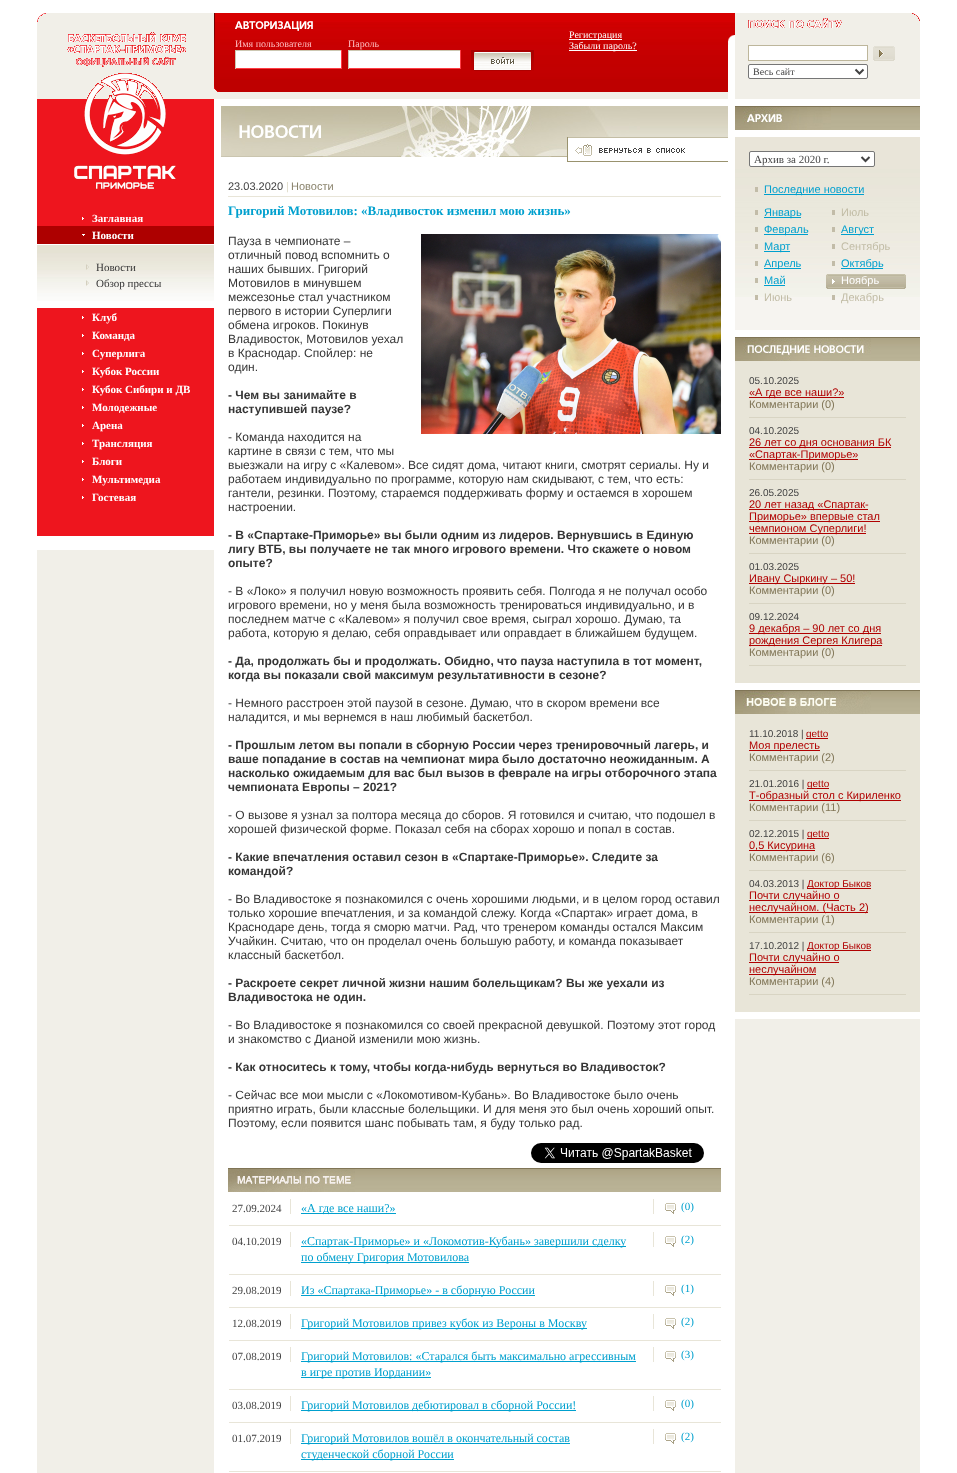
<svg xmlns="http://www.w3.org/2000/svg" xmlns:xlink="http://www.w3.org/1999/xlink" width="957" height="1473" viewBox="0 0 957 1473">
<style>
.cls-1{font:10px Liberation Serif;fill:#ffbec2}
.cls-2{font:10px Liberation Serif;fill:#ffffff}
.cls-3{font:10px Liberation Serif;fill:#424242}
.cls-4{font:bold 11px Liberation Serif;fill:#ffffff}
.cls-5{font:11px Liberation Serif;fill:#363636}
.cls-6{font:11px Liberation Sans;fill:#424242}
.cls-7{font:11px Liberation Sans;fill:#dfdcc9}
.cls-8{font:11px Liberation Sans;fill:#89826b}
.cls-9{font:bold 13px Liberation Serif;fill:#00a0ce}
.cls-10{font:12px Liberation Sans;fill:#363636}
.cls-11{font:bold 12px Liberation Sans;fill:#363636}
.cls-12{font:11px Liberation Serif;fill:#424242}
.cls-13{font:12px Liberation Serif;fill:#00a0ce}
.cls-14{font:11px Liberation Serif;fill:#00a0ce}
.cls-15{font:11px Liberation Sans;fill:#00a0ce}
.cls-16{font:11px Liberation Sans;fill:#c1bca5}
.cls-17{font:11px Liberation Sans;fill:#ffffff}
.cls-18{font:10px Liberation Sans;fill:#424242}
.cls-19{font:11px Liberation Sans;fill:#b00000}
.cls-20{font:11px Liberation Sans;fill:#817657}
.cls-21{font:10px Liberation Sans;fill:#b00000}
</style>
<rect width="100%" height="100%" fill="#ffffff"/>
<rect fill="#f1efe8" x="37" y="13" width="883" height="1460"/>
<image xlink:href="image0.png" x="37" y="13" width="9" height="9"/>
<image xlink:href="image1.png" x="67" y="32" width="119" height="67"/>
<image xlink:href="image2.png" x="214" y="13" width="6" height="79"/>
<image xlink:href="image3.png" x="220" y="13" width="507" height="79"/>
<rect fill="#ffffff" x="236" y="51" width="105" height="17"/>
<rect fill="#ccc7b2" x="235" y="50" width="107" height="1"/>
<rect fill="#ff3c44" x="341" y="50" width="1" height="19"/>
<rect fill="#ff3c44" x="235" y="68" width="107" height="1"/>
<rect fill="#ccc7b2" x="235" y="50" width="1" height="19"/>
<rect fill="#ffffff" x="349" y="51" width="111" height="17"/>
<rect fill="#ccc7b2" x="348" y="50" width="113" height="1"/>
<rect fill="#ff3c44" x="460" y="50" width="1" height="19"/>
<rect fill="#ff3c44" x="348" y="68" width="113" height="1"/>
<rect fill="#ccc7b2" x="348" y="50" width="1" height="19"/>
<image xlink:href="image4.png" x="471" y="50" width="63" height="21"/>
<image xlink:href="image5.png" x="235" y="21" width="78" height="10"/>
<rect fill="#ffffff" x="569" y="39" width="53" height="1"/>
<rect fill="#ffffff" x="569" y="50" width="68" height="1"/>
<image xlink:href="image6.png" x="727" y="13" width="8" height="79"/>
<image xlink:href="image7.png" x="728" y="35" width="7" height="64"/>
<image xlink:href="image8.png" x="912" y="13" width="8" height="8"/>
<image xlink:href="image9.png" x="748" y="18" width="94" height="10"/>
<image xlink:href="image10.png" x="873" y="46" width="22" height="15"/>
<rect fill="#ffffff" stroke="#bdb69b" x="748.5" y="45.5" width="119" height="15"/>
<rect fill="#ffffff" stroke="#767676" x="748.5" y="64.5" width="119" height="14" rx="1.5"/>
<path fill="none" stroke="#424242" stroke-width="2" d="M855.5 69.5L859.5 73.5L863.5 69.5"/>
<rect fill="#ee151e" x="37" y="99" width="177" height="437"/>
<rect fill="#ffffff" x="37" y="536" width="177" height="14"/>
<image xlink:href="image11.png" x="73" y="99" width="103" height="91"/>
<image xlink:href="image12.png" x="82" y="217" width="2" height="3"/>
<rect fill="#ad0000" x="37" y="226" width="177" height="18"/>
<image xlink:href="image13.png" x="82" y="234" width="3" height="2"/>
<rect fill="#ffffff" x="37" y="244" width="177" height="64"/>
<image xlink:href="image14.png" x="37" y="245" width="177" height="56"/>
<image xlink:href="image15.png" x="86" y="264" width="3" height="6"/>
<image xlink:href="image16.png" x="86" y="280" width="3" height="6"/>
<image xlink:href="image12.png" x="82" y="316" width="2" height="3"/>
<image xlink:href="image12.png" x="82" y="334" width="2" height="3"/>
<image xlink:href="image12.png" x="82" y="352" width="2" height="3"/>
<image xlink:href="image12.png" x="82" y="370" width="2" height="3"/>
<image xlink:href="image12.png" x="82" y="388" width="2" height="3"/>
<image xlink:href="image12.png" x="82" y="406" width="2" height="3"/>
<image xlink:href="image12.png" x="82" y="424" width="2" height="3"/>
<image xlink:href="image12.png" x="82" y="442" width="2" height="3"/>
<image xlink:href="image12.png" x="82" y="460" width="2" height="3"/>
<image xlink:href="image12.png" x="82" y="478" width="2" height="3"/>
<image xlink:href="image12.png" x="82" y="496" width="2" height="3"/>
<rect fill="#ffffff" x="214" y="99" width="521" height="1374"/>
<image xlink:href="image17.png" x="640" y="106" width="88" height="31"/>
<image xlink:href="image18.png" x="221" y="106" width="419" height="51"/>
<image xlink:href="image19.png" x="239" y="125" width="82" height="14"/>
<image xlink:href="image20.png" x="567" y="137" width="161" height="25"/>
<rect fill="#e8e5d8" x="228" y="196" width="493" height="1"/>
<image xlink:href="image21.png" x="421" y="234" width="300" height="200"/>
<image xlink:href="image22.png" x="531" y="1143" width="173" height="20"/>
<image xlink:href="image23.png" x="355" y="1169" width="366" height="23"/>
<rect fill="#807556" x="228" y="1168" width="493" height="1"/>
<image xlink:href="image24.png" x="228" y="1169" width="127" height="23"/>
<rect fill="#e8e5d8" x="228" y="1225" width="493" height="1"/>
<rect fill="#ffffff" x="228" y="1225" width="1" height="1"/>
<rect fill="#e8e5d8" x="290" y="1199" width="1" height="15"/>
<rect fill="#00a0ce" x="301" y="1213" width="95" height="1"/>
<rect fill="#e8e5d8" x="653" y="1199" width="1" height="15"/>
<image xlink:href="image25.png" x="665" y="1203" width="11" height="11"/>
<rect fill="#e8e5d8" x="228" y="1274" width="493" height="1"/>
<rect fill="#ffffff" x="228" y="1274" width="1" height="1"/>
<rect fill="#e8e5d8" x="290" y="1232" width="1" height="15"/>
<rect fill="#00a0ce" x="301" y="1246" width="325" height="1"/>
<rect fill="#00a0ce" x="301" y="1262" width="168" height="1"/>
<rect fill="#e8e5d8" x="653" y="1232" width="1" height="15"/>
<image xlink:href="image25.png" x="665" y="1236" width="11" height="11"/>
<rect fill="#e8e5d8" x="228" y="1307" width="493" height="1"/>
<rect fill="#ffffff" x="228" y="1307" width="1" height="1"/>
<rect fill="#e8e5d8" x="290" y="1281" width="1" height="15"/>
<rect fill="#00a0ce" x="301" y="1295" width="234" height="1"/>
<rect fill="#e8e5d8" x="653" y="1281" width="1" height="15"/>
<image xlink:href="image25.png" x="665" y="1285" width="11" height="11"/>
<rect fill="#e8e5d8" x="228" y="1340" width="493" height="1"/>
<rect fill="#ffffff" x="228" y="1340" width="1" height="1"/>
<rect fill="#e8e5d8" x="290" y="1314" width="1" height="15"/>
<rect fill="#00a0ce" x="301" y="1328" width="286" height="1"/>
<rect fill="#e8e5d8" x="653" y="1314" width="1" height="15"/>
<image xlink:href="image25.png" x="665" y="1318" width="11" height="11"/>
<rect fill="#e8e5d8" x="228" y="1389" width="493" height="1"/>
<rect fill="#ffffff" x="228" y="1389" width="1" height="1"/>
<rect fill="#e8e5d8" x="290" y="1347" width="1" height="15"/>
<rect fill="#00a0ce" x="301" y="1361" width="335" height="1"/>
<rect fill="#00a0ce" x="301" y="1377" width="130" height="1"/>
<rect fill="#e8e5d8" x="653" y="1347" width="1" height="15"/>
<image xlink:href="image25.png" x="665" y="1351" width="11" height="11"/>
<rect fill="#e8e5d8" x="228" y="1422" width="493" height="1"/>
<rect fill="#ffffff" x="228" y="1422" width="1" height="1"/>
<rect fill="#e8e5d8" x="290" y="1396" width="1" height="15"/>
<rect fill="#00a0ce" x="301" y="1410" width="275" height="1"/>
<rect fill="#e8e5d8" x="653" y="1396" width="1" height="15"/>
<image xlink:href="image25.png" x="665" y="1400" width="11" height="11"/>
<rect fill="#e8e5d8" x="228" y="1471" width="493" height="1"/>
<rect fill="#ffffff" x="228" y="1471" width="1" height="1"/>
<rect fill="#e8e5d8" x="290" y="1429" width="1" height="15"/>
<rect fill="#00a0ce" x="301" y="1443" width="269" height="1"/>
<rect fill="#00a0ce" x="301" y="1459" width="153" height="1"/>
<rect fill="#e8e5d8" x="653" y="1429" width="1" height="15"/>
<image xlink:href="image25.png" x="665" y="1433" width="11" height="11"/>
<rect fill="#ffffff" x="735" y="99" width="185" height="7"/>
<image xlink:href="image26.png" x="831" y="107" width="89" height="23"/>
<rect fill="#807556" x="735" y="106" width="185" height="1"/>
<image xlink:href="image27.png" x="735" y="107" width="96" height="23"/>
<rect fill="#ffffff" x="735" y="130" width="185" height="7"/>
<rect fill="#ffffff" x="735" y="330" width="185" height="7"/>
<rect fill="#f6f4f0" x="735" y="297" width="185" height="33"/>
<image xlink:href="image28.png" x="735" y="137" width="185" height="160"/>
<rect fill="#ffffff" stroke="#767676" x="749.5" y="151.5" width="125" height="15" rx="1.5"/>
<path fill="none" stroke="#424242" stroke-width="2" d="M861.5 157L865.5 161L869.5 157"/>
<rect fill="#c2bca8" x="755" y="187" width="3" height="5"/>
<rect fill="#00a0ce" x="764" y="194" width="100" height="1"/>
<rect fill="#c2bca8" x="755" y="210" width="3" height="5"/>
<rect fill="#00a0ce" x="764" y="217" width="37" height="1"/>
<rect fill="#c2bca8" x="755" y="227" width="3" height="5"/>
<rect fill="#00a0ce" x="764" y="234" width="44" height="1"/>
<rect fill="#c2bca8" x="755" y="244" width="3" height="5"/>
<rect fill="#00a0ce" x="764" y="251" width="26" height="1"/>
<rect fill="#c2bca8" x="755" y="261" width="3" height="5"/>
<rect fill="#00a0ce" x="764" y="268" width="37" height="1"/>
<rect fill="#c2bca8" x="755" y="278" width="3" height="5"/>
<rect fill="#00a0ce" x="764" y="285" width="21" height="1"/>
<rect fill="#c2bca8" x="755" y="295" width="3" height="5"/>
<rect fill="#c2bca8" x="832" y="210" width="3" height="5"/>
<rect fill="#c2bca8" x="832" y="227" width="3" height="5"/>
<rect fill="#00a0ce" x="841" y="234" width="33" height="1"/>
<rect fill="#c2bca8" x="832" y="244" width="3" height="5"/>
<rect fill="#c2bca8" x="832" y="261" width="3" height="5"/>
<rect fill="#00a0ce" x="841" y="268" width="42" height="1"/>
<image xlink:href="image29.png" x="835" y="274" width="69" height="15"/>
<image xlink:href="image30.png" x="826" y="274" width="9" height="15"/>
<image xlink:href="image31.png" x="904" y="274" width="2" height="15"/>
<rect fill="#c2bca8" x="832" y="295" width="3" height="5"/>
<image xlink:href="image32.png" x="871" y="338" width="49" height="23"/>
<rect fill="#807556" x="735" y="337" width="185" height="1"/>
<image xlink:href="image33.png" x="735" y="338" width="136" height="23"/>
<rect fill="#e8e5d8" x="735" y="361" width="185" height="322"/>
<rect fill="#ffffff" x="735" y="683" width="185" height="7"/>
<rect fill="#d8d4c3" x="749" y="417" width="157" height="1"/>
<rect fill="#b00000" x="749" y="397" width="95" height="1"/>
<rect fill="#d8d4c3" x="749" y="479" width="157" height="1"/>
<rect fill="#b00000" x="749" y="447" width="142" height="1"/>
<rect fill="#b00000" x="749" y="459" width="109" height="1"/>
<rect fill="#d8d4c3" x="749" y="553" width="157" height="1"/>
<rect fill="#b00000" x="749" y="509" width="119" height="1"/>
<rect fill="#b00000" x="749" y="521" width="131" height="1"/>
<rect fill="#b00000" x="749" y="533" width="117" height="1"/>
<rect fill="#d8d4c3" x="749" y="603" width="157" height="1"/>
<rect fill="#b00000" x="749" y="583" width="106" height="1"/>
<rect fill="#d8d4c3" x="749" y="665" width="157" height="1"/>
<rect fill="#b00000" x="749" y="633" width="132" height="1"/>
<rect fill="#b00000" x="749" y="645" width="133" height="1"/>
<image xlink:href="image32.png" x="871" y="691" width="49" height="23"/>
<rect fill="#807556" x="735" y="690" width="185" height="1"/>
<image xlink:href="image34.png" x="735" y="691" width="136" height="23"/>
<rect fill="#e8e5d8" x="735" y="714" width="185" height="298"/>
<rect fill="#ffffff" x="735" y="1012" width="185" height="7"/>
<rect fill="#d8d4c3" x="749" y="770" width="157" height="1"/>
<rect fill="#b00000" x="806" y="738" width="22" height="1"/>
<rect fill="#b00000" x="749" y="750" width="71" height="1"/>
<rect fill="#d8d4c3" x="749" y="820" width="157" height="1"/>
<rect fill="#b00000" x="807" y="788" width="22" height="1"/>
<rect fill="#b00000" x="749" y="800" width="152" height="1"/>
<rect fill="#d8d4c3" x="749" y="870" width="157" height="1"/>
<rect fill="#b00000" x="807" y="838" width="22" height="1"/>
<rect fill="#b00000" x="749" y="850" width="66" height="1"/>
<rect fill="#d8d4c3" x="749" y="932" width="157" height="1"/>
<rect fill="#b00000" x="807" y="888" width="64" height="1"/>
<rect fill="#b00000" x="749" y="900" width="90" height="1"/>
<rect fill="#b00000" x="749" y="912" width="119" height="1"/>
<rect fill="#d8d4c3" x="749" y="994" width="157" height="1"/>
<rect fill="#b00000" x="807" y="950" width="64" height="1"/>
<rect fill="#b00000" x="749" y="962" width="90" height="1"/>
<rect fill="#b00000" x="749" y="974" width="67" height="1"/>
<text class="cls-1" x="235" y="47">Имя пользователя</text>
<text class="cls-1" x="348" y="47">Пароль</text>
<text class="cls-2"><tspan x="569" y="38">Регистрация</tspan><tspan x="569" y="49">Забыли пароль?</tspan></text>
<text class="cls-3" x="753" y="75">Весь сайт</text>
<text class="cls-4"><tspan x="92" y="222">Заглавная</tspan><tspan x="92" y="239">Новости</tspan></text>
<text class="cls-5"><tspan x="96" y="271">Новости</tspan><tspan x="96" y="287">Обзор прессы</tspan></text>
<text class="cls-4"><tspan x="92" y="321">Клуб</tspan><tspan x="92" y="339">Команда</tspan><tspan x="92" y="357">Суперлига</tspan><tspan x="92" y="375">Кубок России</tspan><tspan x="92" y="393">Кубок Сибири и ДВ</tspan><tspan x="92" y="411">Молодежные</tspan><tspan x="92" y="429">Арена</tspan><tspan x="92" y="447">Трансляция</tspan><tspan x="92" y="465">Блоги</tspan><tspan x="92" y="483">Мультимедиа</tspan><tspan x="92" y="501">Гостевая</tspan></text>
<text class="cls-6" x="228" y="190">23.03.2020</text>
<text class="cls-7" x="286" y="190">|</text>
<text class="cls-8" x="291" y="190">Новости</text>
<text class="cls-9" x="228" y="215">Григорий Мотовилов: «Владивосток изменил мою жизнь»</text>
<text class="cls-10"><tspan x="228" y="245">Пауза в чемпионате –</tspan><tspan x="228" y="259">отличный повод вспомнить о</tspan><tspan x="228" y="273">наших бывших. Григорий</tspan><tspan x="228" y="287">Мотовилов в минувшем</tspan><tspan x="228" y="301">межсезонье стал участником</tspan><tspan x="228" y="315">первого в истории Суперлиги</tspan><tspan x="228" y="329">обмена игроков. Покинув</tspan><tspan x="228" y="343">Владивосток, Мотовилов уехал</tspan><tspan x="228" y="357">в Краснодар. Спойлер: не</tspan><tspan x="228" y="371">один.</tspan></text>
<text class="cls-11"><tspan x="228" y="399">- Чем вы занимайте в</tspan><tspan x="228" y="413">наступившей паузе?</tspan></text>
<text class="cls-10"><tspan x="228" y="441">- Команда находится на</tspan><tspan x="228" y="455">картине в связи с тем, что мы</tspan><tspan x="228" y="469">выезжали на игру с «Калевом». Все сидят дома, читают книги, смотрят сериалы. Ну и</tspan><tspan x="228" y="483">работаем индивидуально по программе, которую нам скидывают, с тем, что есть:</tspan><tspan x="228" y="497">гантели, резинки. Поэтому, стараемся поддерживать форму и остаемся в хорошем</tspan><tspan x="228" y="511">настроении.</tspan></text>
<text class="cls-11"><tspan x="228" y="539">- В «Спартаке-Приморье» вы были одним из лидеров. Вернувшись в Единую</tspan><tspan x="228" y="553">лигу ВТБ, вы получаете не так много игрового времени. Что скажете о новом</tspan><tspan x="228" y="567">опыте?</tspan></text>
<text class="cls-10"><tspan x="228" y="595">- В «Локо» я получил новую возможность проявить себя. Полгода я не получал особо</tspan><tspan x="228" y="609">игрового времени, но у меня была возможность тренироваться индивидуально, и в</tspan><tspan x="228" y="623">последнем матче с «Калевом» я получил свое время, сыграл хорошо. Думаю, та</tspan><tspan x="228" y="637">работа, которую я делаю, себя оправдывает или оправдает в ближайшем будущем.</tspan></text>
<text class="cls-11"><tspan x="228" y="665">- Да, продолжать бы и продолжать. Обидно, что пауза наступила в тот момент,</tspan><tspan x="228" y="679">когда вы показали свой максимум результативности в сезоне?</tspan></text>
<text class="cls-10"><tspan x="228" y="707">- Немного расстроен этой паузой в сезоне. Думаю, что в скором времени все</tspan><tspan x="228" y="721">наладится, и мы вернемся в наш любимый баскетбол.</tspan></text>
<text class="cls-11"><tspan x="228" y="749">- Прошлым летом вы попали в сборную России через тренировочный лагерь, и</tspan><tspan x="228" y="763">ваше попадание в состав на чемпионат мира было достаточно неожиданным. А</tspan><tspan x="228" y="777">насколько ожидаемым для вас был вызов в феврале на игры отборочного этапа</tspan><tspan x="228" y="791">чемпионата Европы – 2021?</tspan></text>
<text class="cls-10"><tspan x="228" y="819">- О вызове я узнал за полтора месяца до сборов. Я готовился и считаю, что подошел в</tspan><tspan x="228" y="833">хорошей физической форме. Показал себя на сборах хорошо и попал в состав.</tspan></text>
<text class="cls-11"><tspan x="228" y="861">- Какие впечатления оставил сезон в «Спартаке-Приморье». Следите за</tspan><tspan x="228" y="875">командой?</tspan></text>
<text class="cls-10"><tspan x="228" y="903">- Во Владивостоке я познакомился с очень хорошими людьми, и в целом город оставил</tspan><tspan x="228" y="917">только хорошие впечатления, и за командой слежу. Когда «Спартак» играет дома, в</tspan><tspan x="228" y="931">Краснодаре день, тогда я сморю матчи. Рад, что тренером команды остался Максим</tspan><tspan x="228" y="945">Учайкин. Считаю, что он проделал очень большую работу, и команда показывает</tspan><tspan x="228" y="959">классный баскетбол.</tspan></text>
<text class="cls-11"><tspan x="228" y="987">- Раскроете секрет личной жизни нашим болельщикам? Вы же уехали из</tspan><tspan x="228" y="1001">Владивостока не один.</tspan></text>
<text class="cls-10"><tspan x="228" y="1029">- Во Владивостоке я познакомился со своей прекрасной девушкой. Поэтому этот город</tspan><tspan x="228" y="1043">и знакомство с Дианой изменили мою жизнь.</tspan></text>
<text class="cls-11" x="228" y="1071">- Как относитесь к тому, чтобы когда-нибудь вернуться во Владивосток?</text>
<text class="cls-10"><tspan x="228" y="1099">- Сейчас все мои мысли с «Локомотивом-Кубань». Во Владивостоке было очень</tspan><tspan x="228" y="1113">приятно играть, были классные болельщики. И для меня это был очень хороший опыт.</tspan><tspan x="228" y="1127">Поэтому, если появится шанс побывать там, я буду только рад.</tspan></text>
<text class="cls-12" x="232" y="1212">27.09.2024</text>
<text class="cls-13" x="301" y="1212">«А где все наши?»</text>
<text class="cls-14" x="681" y="1210">(0)</text>
<text class="cls-12" x="232" y="1245">04.10.2019</text>
<text class="cls-13"><tspan x="301" y="1245">«Спартак-Приморье» и «Локомотив-Кубань» завершили сделку</tspan><tspan x="301" y="1261">по обмену Григория Мотовилова</tspan></text>
<text class="cls-14" x="681" y="1243">(2)</text>
<text class="cls-12" x="232" y="1294">29.08.2019</text>
<text class="cls-13" x="301" y="1294">Из «Спартака-Приморье» - в сборную России</text>
<text class="cls-14" x="681" y="1292">(1)</text>
<text class="cls-12" x="232" y="1327">12.08.2019</text>
<text class="cls-13" x="301" y="1327">Григорий Мотовилов привез кубок из Вероны в Москву</text>
<text class="cls-14" x="681" y="1325">(2)</text>
<text class="cls-12" x="232" y="1360">07.08.2019</text>
<text class="cls-13"><tspan x="301" y="1360">Григорий Мотовилов: «Старался быть максимально агрессивным</tspan><tspan x="301" y="1376">в игре против Иордании»</tspan></text>
<text class="cls-14" x="681" y="1358">(3)</text>
<text class="cls-12" x="232" y="1409">03.08.2019</text>
<text class="cls-13" x="301" y="1409">Григорий Мотовилов дебютировал в сборной России!</text>
<text class="cls-14" x="681" y="1407">(0)</text>
<text class="cls-12" x="232" y="1442">01.07.2019</text>
<text class="cls-13"><tspan x="301" y="1442">Григорий Мотовилов вошёл в окончательный состав</tspan><tspan x="301" y="1458">студенческой сборной России</tspan></text>
<text class="cls-14" x="681" y="1440">(2)</text>
<text class="cls-12" x="754" y="163">Архив за 2020 г.</text>
<text class="cls-15" x="764" y="193">Последние новости</text>
<text class="cls-15"><tspan x="764" y="216">Январь</tspan><tspan x="764" y="233">Февраль</tspan><tspan x="764" y="250">Март</tspan><tspan x="764" y="267">Апрель</tspan><tspan x="764" y="284">Май</tspan></text>
<text class="cls-16" x="764" y="301">Июнь</text>
<text class="cls-16" x="841" y="216">Июль</text>
<text class="cls-15" x="841" y="233">Август</text>
<text class="cls-16" x="841" y="250">Сентябрь</text>
<text class="cls-15" x="841" y="267">Октябрь</text>
<text class="cls-17" x="841" y="284">Ноябрь</text>
<text class="cls-16" x="841" y="301">Декабрь</text>
<text class="cls-18" x="749" y="384">05.10.2025</text>
<text class="cls-19" x="749" y="396">«А где все наши?»</text>
<text class="cls-20" x="749" y="408">Комментарии (0)</text>
<text class="cls-18" x="749" y="434">04.10.2025</text>
<text class="cls-19"><tspan x="749" y="446">26 лет со дня основания БК</tspan><tspan x="749" y="458">«Спартак-Приморье»</tspan></text>
<text class="cls-20" x="749" y="470">Комментарии (0)</text>
<text class="cls-18" x="749" y="496">26.05.2025</text>
<text class="cls-19"><tspan x="749" y="508">20 лет назад «Спартак-</tspan><tspan x="749" y="520">Приморье» впервые стал</tspan><tspan x="749" y="532">чемпионом Суперлиги!</tspan></text>
<text class="cls-20" x="749" y="544">Комментарии (0)</text>
<text class="cls-18" x="749" y="570">01.03.2025</text>
<text class="cls-19" x="749" y="582">Ивану Сыркину – 50!</text>
<text class="cls-20" x="749" y="594">Комментарии (0)</text>
<text class="cls-18" x="749" y="620">09.12.2024</text>
<text class="cls-19"><tspan x="749" y="632">9 декабря – 90 лет со дня</tspan><tspan x="749" y="644">рождения Сергея Клигера</tspan></text>
<text class="cls-20" x="749" y="656">Комментарии (0)</text>
<text class="cls-18" x="749" y="737">11.10.2018 |</text>
<text class="cls-21" x="806" y="737">getto</text>
<text class="cls-19" x="749" y="749">Моя прелесть</text>
<text class="cls-20" x="749" y="761">Комментарии (2)</text>
<text class="cls-18" x="749" y="787">21.01.2016 |</text>
<text class="cls-21" x="807" y="787">getto</text>
<text class="cls-19" x="749" y="799">Т-образный стол с Кириленко</text>
<text class="cls-20" x="749" y="811">Комментарии (11)</text>
<text class="cls-18" x="749" y="837">02.12.2015 |</text>
<text class="cls-21" x="807" y="837">getto</text>
<text class="cls-19" x="749" y="849">0,5 Кисурина</text>
<text class="cls-20" x="749" y="861">Комментарии (6)</text>
<text class="cls-18" x="749" y="887">04.03.2013 |</text>
<text class="cls-21" x="807" y="887">Доктор Быков</text>
<text class="cls-19"><tspan x="749" y="899">Почти случайно о</tspan><tspan x="749" y="911">неслучайном. (Часть 2)</tspan></text>
<text class="cls-20" x="749" y="923">Комментарии (1)</text>
<text class="cls-18" x="749" y="949">17.10.2012 |</text>
<text class="cls-21" x="807" y="949">Доктор Быков</text>
<text class="cls-19"><tspan x="749" y="961">Почти случайно о</tspan><tspan x="749" y="973">неслучайном</tspan></text>
<text class="cls-20" x="749" y="985">Комментарии (4)</text>
</svg>
